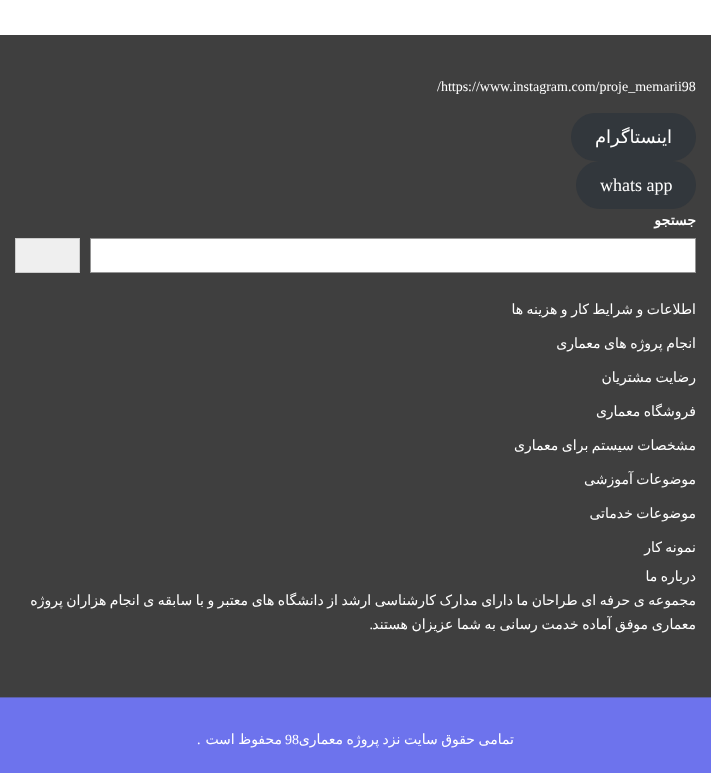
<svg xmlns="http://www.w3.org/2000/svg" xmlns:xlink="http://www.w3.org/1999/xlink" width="711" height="773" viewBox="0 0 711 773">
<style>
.cls-1{font:14px Liberation Serif;fill:#ffffff}
.cls-2{font:18px DejaVu Sans;direction:rtl;fill:#ffffff}
.cls-3{font:18px Liberation Serif;fill:#ffffff}
.cls-4{font:bold 14px DejaVu Sans;direction:rtl;fill:#ffffff}
.cls-5{font:14px DejaVu Sans;direction:rtl;fill:#ffffff}
.cls-6{font:14px Liberation Serif;direction:rtl;fill:#ffffff}
</style>
<rect width="100%" height="100%" fill="#ffffff"/>
<rect fill="#3f3f3f" x="0" y="35" width="711" height="662"/>
<rect fill="#32373c" x="571" y="113" width="125" height="48" rx="24"/>
<rect fill="#32373c" x="576" y="161" width="120" height="48" rx="24"/>
<rect fill="#ffffff" stroke="#949494" x="90.5" y="238.5" width="605" height="34"/>
<rect fill="#efefef" stroke="#cccccc" x="15.5" y="238.5" width="64" height="34"/>
<rect fill="#6d73ed" x="0" y="698" width="711" height="75"/>
<rect fill="#5b5fa7" x="0" y="697" width="711" height="1"/>
<text class="cls-1" x="437" y="91">/https://www.instagram.com/proje_memarii98</text>
<text class="cls-2" x="672" y="143">اینستاگرام</text>
<text class="cls-3" x="600" y="191">whats app</text>
<text class="cls-4" x="696" y="225">جستجو</text>
<text class="cls-5" x="696" y="314" word-spacing="-0.9">اطلاعات و شرایط کار و هزینه ها</text>
<text class="cls-5" x="696" y="348" word-spacing="-0.9">انجام پروژه های معماری</text>
<text class="cls-5" x="696" y="382" word-spacing="-0.9">رضایت مشتریان</text>
<text class="cls-5" x="696" y="416" word-spacing="-0.9">فروشگاه معماری</text>
<text class="cls-5" x="696" y="450" word-spacing="-0.9">مشخصات سیستم برای معماری</text>
<text class="cls-5" x="696" y="484" word-spacing="-0.9">موضوعات آموزشی</text>
<text class="cls-5" x="696" y="518" word-spacing="-0.9">موضوعات خدماتی</text>
<text class="cls-5" x="696" y="552" word-spacing="-0.9">نمونه کار</text>
<text class="cls-5"><tspan x="696" y="581" word-spacing="-0.9">درباره ما</tspan><tspan x="696" y="605" word-spacing="-0.9">مجموعه ی حرفه ای طراحان ما دارای مدارک کارشناسی ارشد از دانشگاه های معتبر و با سابقه ی انجام هزاران پروژه</tspan><tspan x="696" y="629" word-spacing="-0.9">معماری موفق آماده خدمت رسانی به شما عزیزان هستند</tspan></text>
<text class="cls-6" x="373" y="629">.</text>
<text class="cls-5" x="514" y="744" word-spacing="-0.9">تمامی حقوق سایت نزد پروژه معماری</text>
<text class="cls-1" x="285" y="744">98</text>
<text class="cls-5" x="282" y="744" word-spacing="-1">محفوظ است</text>
<text class="cls-1" x="197" y="744">.</text>
</svg>
